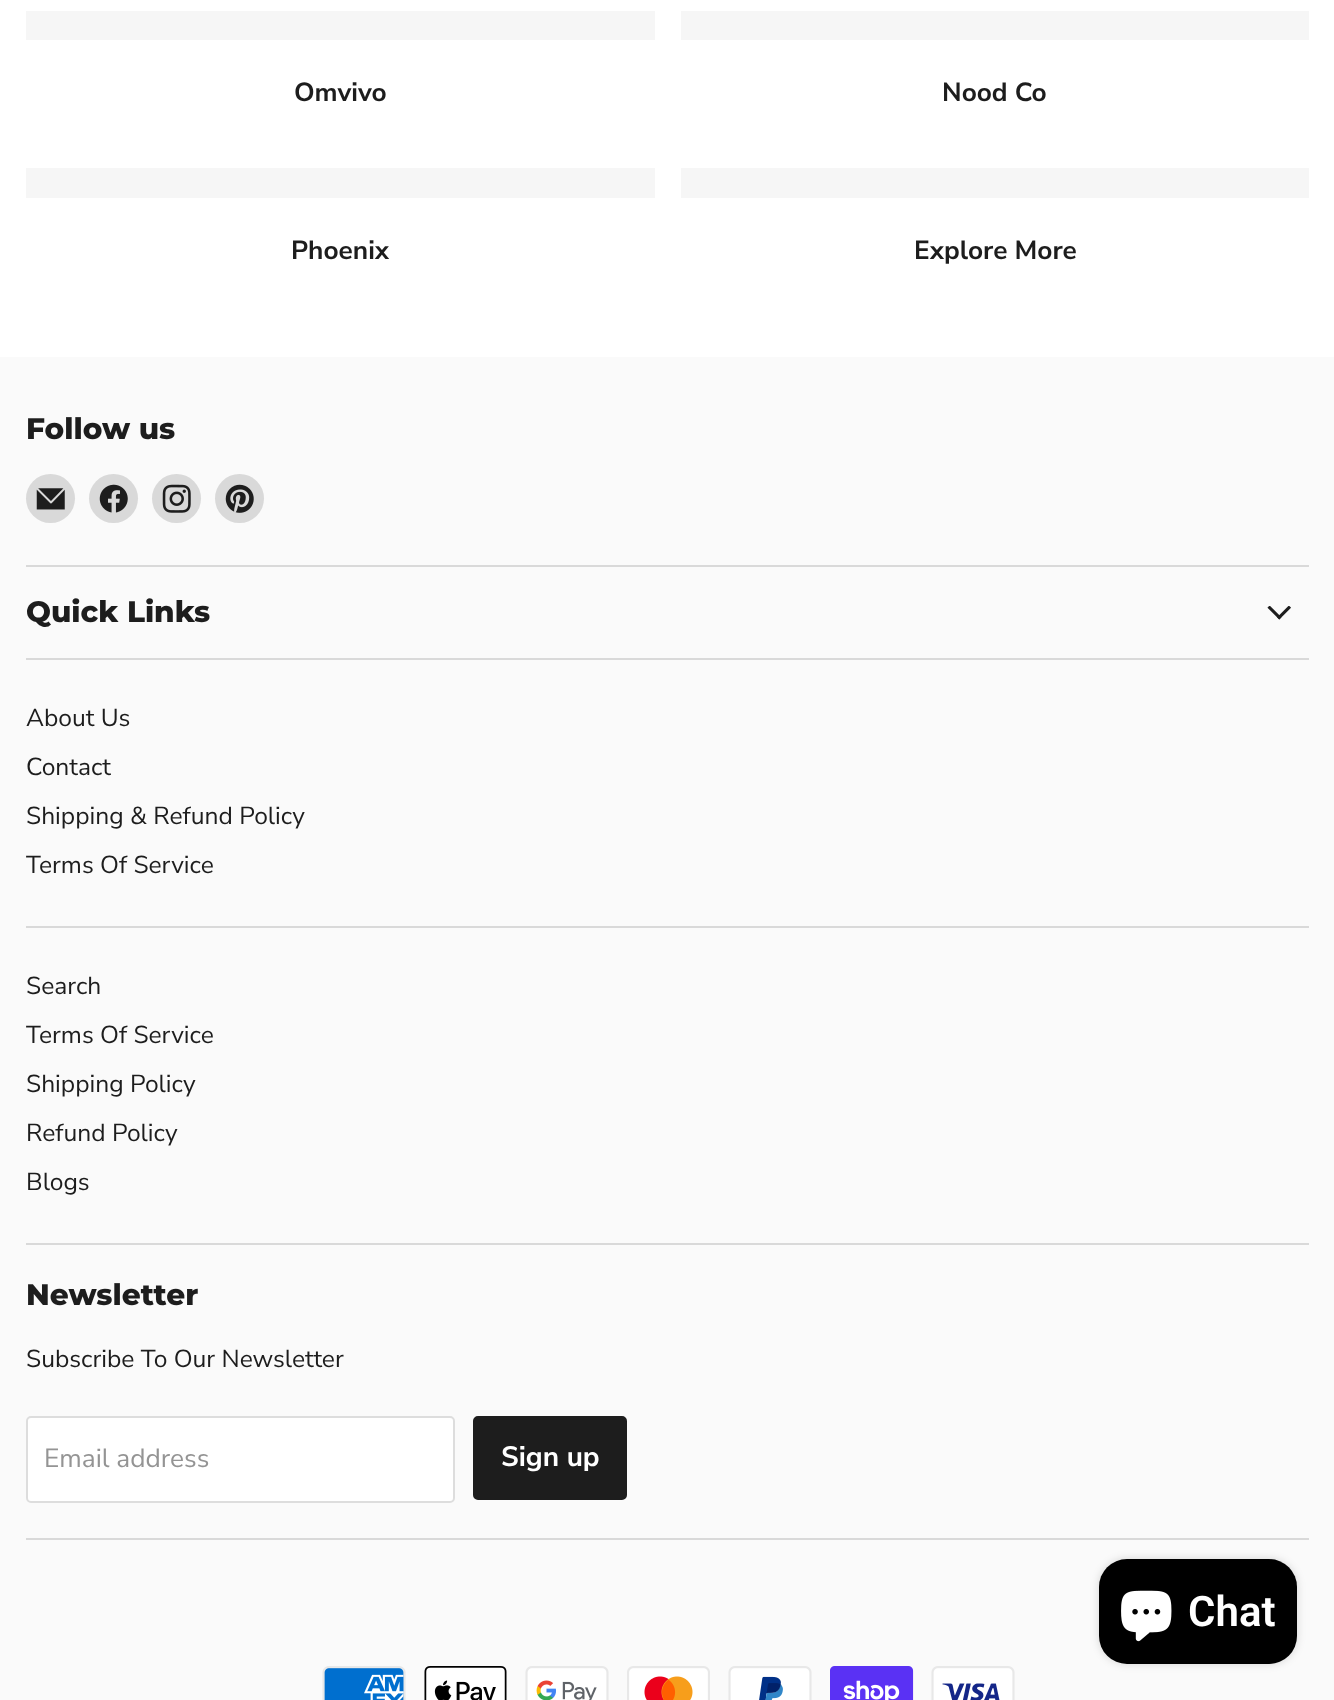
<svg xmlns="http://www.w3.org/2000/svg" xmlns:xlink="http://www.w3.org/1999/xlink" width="1334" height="1700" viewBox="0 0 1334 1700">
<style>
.cls-1{font:bold 26.25px Nunito Sans;fill:#1d1d1d}
.cls-2{font:800 29.5px Montserrat;fill:#1d1d1d}
.cls-3{font:24.6px Nunito Sans;fill:#1d1d1d}
.cls-4{font:26.25px Nunito Sans;fill:#949494}
.cls-5{font:bold 28px Nunito Sans;fill:#ffffff}
.cls-6{font:600 42px Roboto;fill:#ffffff}
</style>
<rect width="100%" height="100%" fill="#ffffff"/>
<rect fill="#f6f6f6" x="26" y="11" width="629" height="29"/>
<rect fill="#f6f6f6" x="681" y="11" width="628" height="29"/>
<rect fill="#f6f6f6" x="26" y="168" width="629" height="30"/>
<rect fill="#f6f6f6" x="681" y="168" width="628" height="30"/>
<rect fill="#fafafa" x="0" y="357" width="1334" height="1343"/>
<rect fill="#d9d9d9" x="26" y="565" width="1283" height="2"/>
<circle fill="#d9d9d9" cx="50.5" cy="498.5" r="24.5"/>
<image xlink:href="image0.png" x="36" y="488" width="29" height="22"/>
<circle fill="#d9d9d9" cx="113.5" cy="498.5" r="24.5"/>
<image xlink:href="image1.png" x="99" y="484" width="29" height="29"/>
<circle fill="#d9d9d9" cx="176.5" cy="498.5" r="24.5"/>
<image xlink:href="image2.png" x="162" y="484" width="29" height="29"/>
<circle fill="#d9d9d9" cx="239.5" cy="498.5" r="24.5"/>
<image xlink:href="image3.png" x="225" y="484" width="29" height="29"/>
<rect fill="#d9d9d9" x="26" y="658" width="1283" height="2"/>
<image xlink:href="image4.png" x="1267" y="606" width="24" height="14"/>
<rect fill="#d9d9d9" x="26" y="926" width="1283" height="2"/>
<rect fill="#d9d9d9" x="26" y="1243" width="1283" height="2"/>
<rect fill="#d9d9d9" x="26" y="1538" width="1283" height="2"/>
<rect fill="#ffffff" stroke="#dddddd" stroke-width="2" x="27" y="1417" width="427" height="85" rx="4"/>
<rect fill="#1d1d1d" stroke="#1d1d1d" stroke-width="2" x="474" y="1417" width="152" height="82" rx="4"/>
<image xlink:href="image5.png" x="322" y="1666" width="84" height="34"/>
<image xlink:href="image6.png" x="424" y="1666" width="83" height="34"/>
<image xlink:href="image7.png" x="525" y="1666" width="84" height="34"/>
<image xlink:href="image8.png" x="627" y="1666" width="83" height="34"/>
<image xlink:href="image9.png" x="728" y="1666" width="84" height="34"/>
<image xlink:href="image10.png" x="830" y="1666" width="84" height="34"/>
<image xlink:href="image11.png" x="931" y="1666" width="84" height="34"/>
<rect fill="#000000" fill-opacity="0.15" filter="blur(4.5px)" x="1099" y="1559" width="198" height="105" rx="28"/>
<rect fill="#000000" x="1099" y="1559" width="198" height="105" rx="28"/>
<image xlink:href="image12.png" x="1121" y="1590" width="51" height="52"/>
<text class="cls-1" x="294" y="101">Omvivo</text>
<text class="cls-1" x="942" y="101">Nood Co</text>
<text class="cls-1" x="291" y="259">Phoenix</text>
<text class="cls-1" x="914" y="259">Explore More</text>
<text class="cls-2" x="26" y="439">Follow us</text>
<text class="cls-2" x="26" y="622">Quick Links</text>
<text class="cls-3"><tspan x="26" y="726">About Us</tspan><tspan x="26" y="775">Contact</tspan><tspan x="26" y="824">Shipping &amp; Refund Policy</tspan><tspan x="26" y="873">Terms Of Service</tspan></text>
<text class="cls-3"><tspan x="26" y="994">Search</tspan><tspan x="26" y="1043">Terms Of Service</tspan><tspan x="26" y="1092">Shipping Policy</tspan><tspan x="26" y="1141">Refund Policy</tspan><tspan x="26" y="1190">Blogs</tspan></text>
<text class="cls-2" x="26" y="1305">Newsletter</text>
<text class="cls-3" x="26" y="1367">Subscribe To Our Newsletter</text>
<text class="cls-4" x="44" y="1467">Email address</text>
<text class="cls-5" x="501" y="1466">Sign up</text>
<text class="cls-6" x="1188" y="1626">Chat</text>
</svg>
